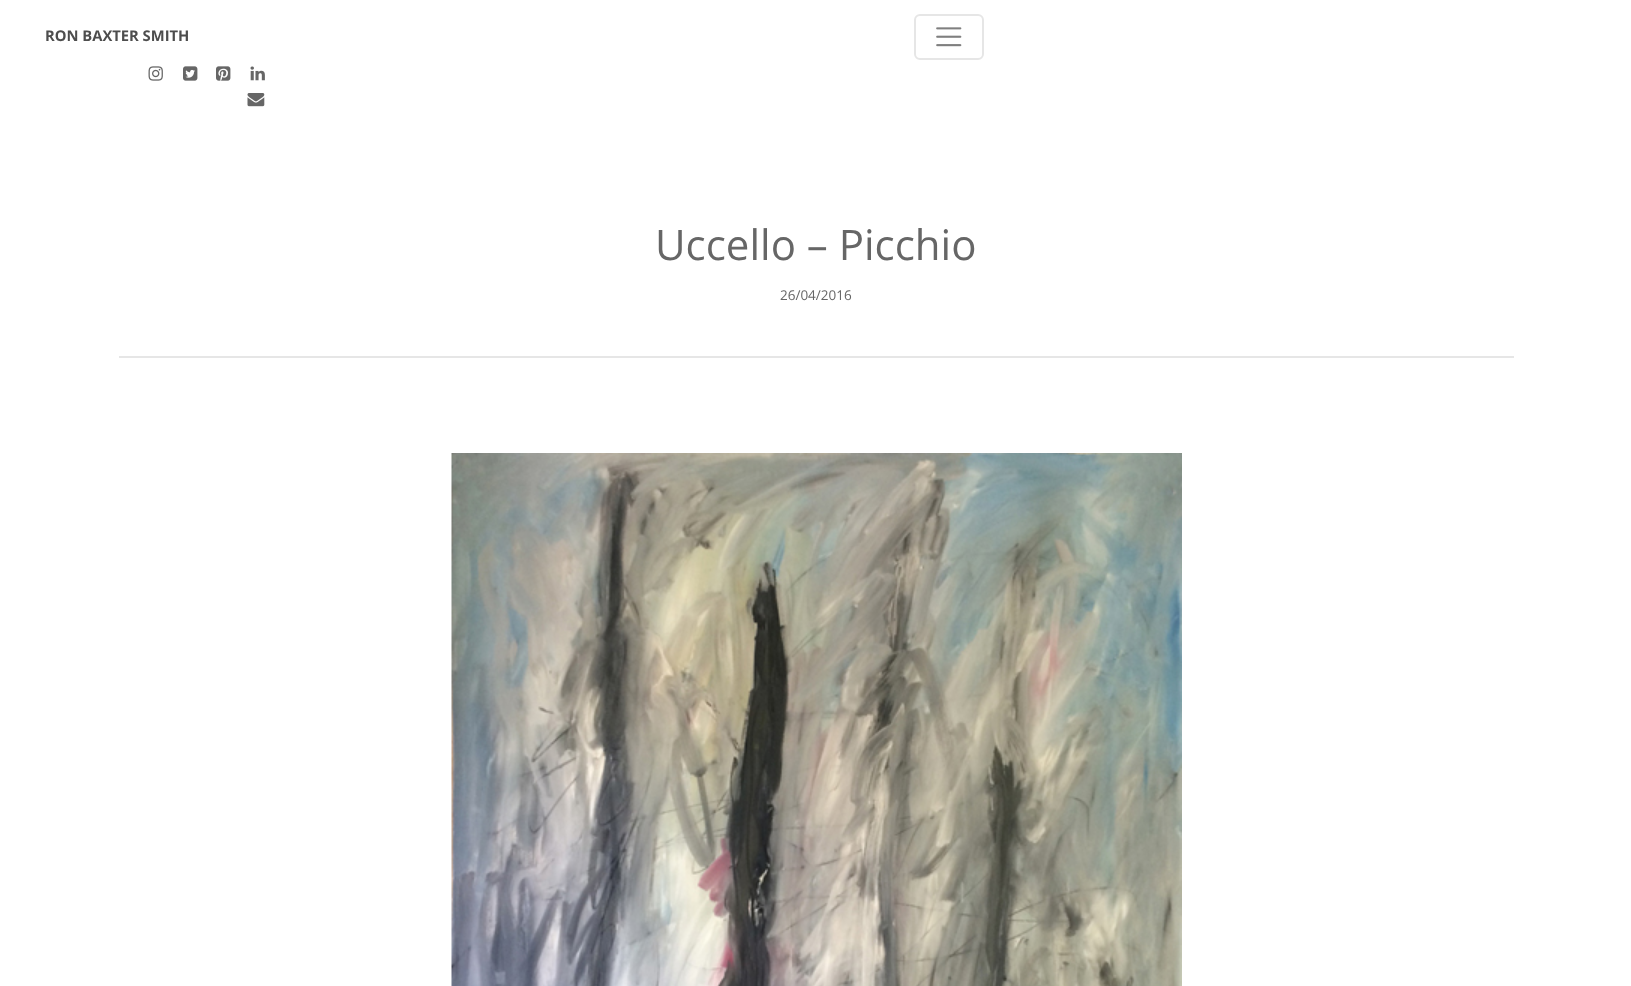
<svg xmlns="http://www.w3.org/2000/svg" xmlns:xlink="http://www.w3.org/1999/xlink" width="1631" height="986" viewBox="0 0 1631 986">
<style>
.cls-1{font:bold 14.75px Open Sans;fill:#4d4d4d}
.cls-2{font:42px Open Sans;fill:#666666}
.cls-3{font:13.5px Open Sans;fill:#666666}
</style>
<rect width="100%" height="100%" fill="#ffffff"/>
<rect fill="none" stroke="#e6e6e6" stroke-width="2" x="915" y="15" width="68" height="44" rx="5"/>
<image xlink:href="image0.png" x="936" y="27" width="26" height="20"/>
<image xlink:href="image1.png" x="148" y="66" width="15" height="15"/>
<image xlink:href="image2.png" x="183" y="66" width="15" height="15"/>
<image xlink:href="image3.png" x="216" y="66" width="15" height="15"/>
<image xlink:href="image4.png" x="250" y="66" width="15" height="15"/>
<image xlink:href="image5.png" x="247" y="93" width="18" height="14"/>
<rect fill="#e6e6e6" x="119" y="356" width="1395" height="2"/>
<image xlink:href="image6.png" x="451" y="453" width="731" height="533"/>
<text class="cls-1" x="45" y="41">RON BAXTER SMITH</text>
<text class="cls-2" x="655" y="260">Uccello – Picchio</text>
<text class="cls-3" x="780" y="300">26/04/2016</text>
</svg>
